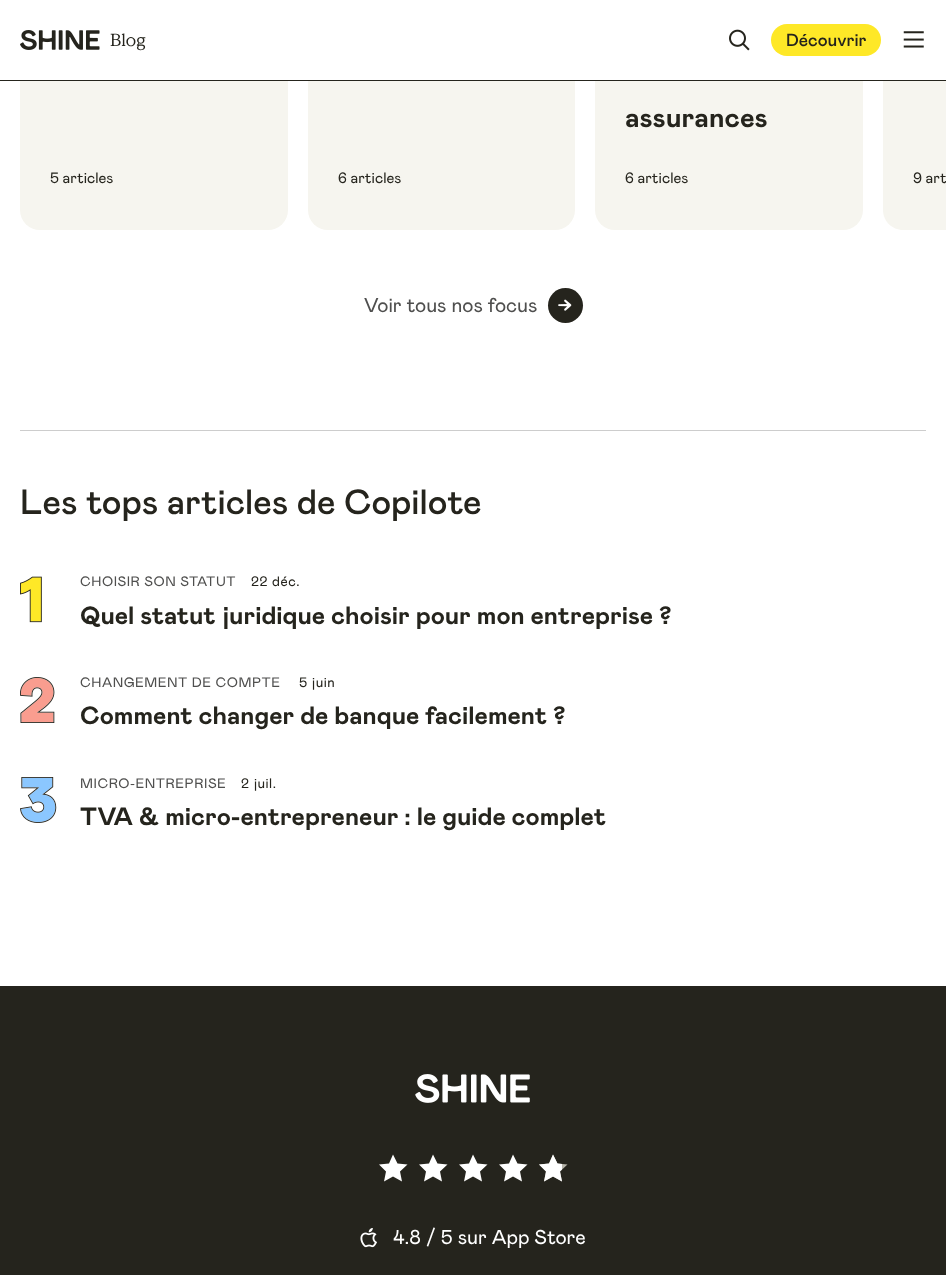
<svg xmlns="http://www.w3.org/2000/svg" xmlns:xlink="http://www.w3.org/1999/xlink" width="946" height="1275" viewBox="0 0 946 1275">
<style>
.cls-1{font:17.5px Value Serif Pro;fill:#25241d}
.cls-2{font:500 17.5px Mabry;fill:#25241d}
.cls-3{font:15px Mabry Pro;fill:#25241d}
.cls-4{font:bold 27.5px Mabry Pro;fill:#25241d}
.cls-5{font:20px Mabry Pro;fill:#4f4f4e}
.cls-6{font:500 35px Mabry;fill:#25241d}
.cls-7{font:13.75px Mabry Pro;letter-spacing:0.55px;fill:#4f4f4e}
.cls-8{font:13.75px Mabry Pro;letter-spacing:0.55px;fill:#25241d}
.cls-9{font:bold 25px Mabry Pro;fill:#25241d}
.cls-10{font:20px Mabry Pro;fill:#ffffff}
</style>
<rect width="100%" height="100%" fill="#ffffff"/>
<rect fill="#f6f5ef" x="20" y="-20" width="268" height="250" rx="20"/>
<rect fill="#f6f5ef" x="308" y="-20" width="267" height="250" rx="20"/>
<rect fill="#f6f5ef" x="595" y="-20" width="268" height="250" rx="20"/>
<path fill="#f6f5ef" d="M903-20H946V230H903C892 230 883 221 883 210V0C883-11 892-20 903-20Z"/>
<rect fill="#ffffff" x="20" y="0" width="926" height="80"/>
<rect fill="#25241d" x="0" y="80" width="946" height="1"/>
<image xlink:href="image0.png" x="20" y="30" width="80" height="20"/>
<image xlink:href="image1.png" x="729" y="29" width="21" height="22"/>
<rect fill="#fee827" x="771" y="24" width="110" height="32" rx="16"/>
<image xlink:href="image2.png" x="903" y="31" width="21" height="17"/>
<circle fill="#25241d" cx="565.5" cy="305.5" r="17.5"/>
<image xlink:href="image3.png" x="558" y="299" width="14" height="12"/>
<rect fill="#cdcdcd" x="20" y="430" width="906" height="1"/>
<image xlink:href="image4.png" x="20" y="576" width="22" height="47"/>
<image xlink:href="image5.png" x="20" y="677" width="35" height="46"/>
<image xlink:href="image6.png" x="20" y="777" width="37" height="46"/>
<rect fill="#25241d" x="0" y="986" width="946" height="289"/>
<image xlink:href="image7.png" x="415" y="1074" width="115" height="29"/>
<path fill="#ffffff" d="M384 1181.5L393 1176.5L402 1181.5L400 1171.5L407.5 1164.5L397.5 1163.5L393 1154.5L389 1163.5L379 1164.5L386 1171.5Z"/>
<path fill="#ffffff" d="M424 1181.5L433 1176.5L442 1181.5L440 1171.5L447.5 1164.5L437.5 1163.5L433 1154.5L429 1163.5L419 1164.5L426 1171.5Z"/>
<path fill="#ffffff" d="M464 1181.5L473 1176.5L482 1181.5L480 1171.5L487.5 1164.5L477.5 1163.5L473 1154.5L469 1163.5L459 1164.5L466 1171.5Z"/>
<path fill="#ffffff" d="M504 1181.5L513 1176.5L522 1181.5L520 1171.5L527.5 1164.5L517.5 1163.5L513 1154.5L509 1163.5L499 1164.5L506 1171.5Z"/>
<path fill="#b6b4aa" d="M544 1181.5L553 1176.5L562 1181.5L560 1171.5L567.5 1164.5L557.5 1163.5L553 1154.5L549 1163.5L539 1164.5L546 1171.5Z"/>
<path fill="#ffffff" d="M544 1181.5L546 1171.5L539 1164.5L549 1163.5L553 1154.5L557.5 1163.5L562 1164V1169.5L560 1171.5L562 1181.5L553 1176.5Z"/>
<image xlink:href="image8.png" x="360" y="1228" width="17" height="20"/>
<text class="cls-1" x="110" y="46">Blog</text>
<text class="cls-2" x="786" y="46">Découvrir</text>
<text class="cls-3" x="50" y="183">5 articles</text>
<text class="cls-3" x="338" y="183">6 articles</text>
<text class="cls-4" x="625" y="127">assurances</text>
<text class="cls-3" x="625" y="183">6 articles</text>
<text class="cls-3" x="913" y="183">9 art</text>
<text class="cls-5" x="364" y="312">Voir tous nos focus</text>
<text class="cls-6" x="20" y="514">Les tops articles de Copilote</text>
<text class="cls-7" x="80" y="586">CHOISIR SON STATUT</text>
<text class="cls-8" x="251" y="586">22 déc.</text>
<text class="cls-9" x="80" y="624">Quel statut juridique choisir pour mon entreprise ?</text>
<text class="cls-7" x="80" y="687">CHANGEMENT DE COMPTE</text>
<text class="cls-8" x="299" y="687">5 juin</text>
<text class="cls-9" x="80" y="724">Comment changer de banque facilement ?</text>
<text class="cls-7" x="80" y="788">MICRO-ENTREPRISE</text>
<text class="cls-8" x="241" y="788">2 juil.</text>
<text class="cls-9" x="80" y="825">TVA &amp; micro-entrepreneur : le guide complet</text>
<text class="cls-10" x="393" y="1244">4.8 / 5 sur App Store</text>
</svg>
